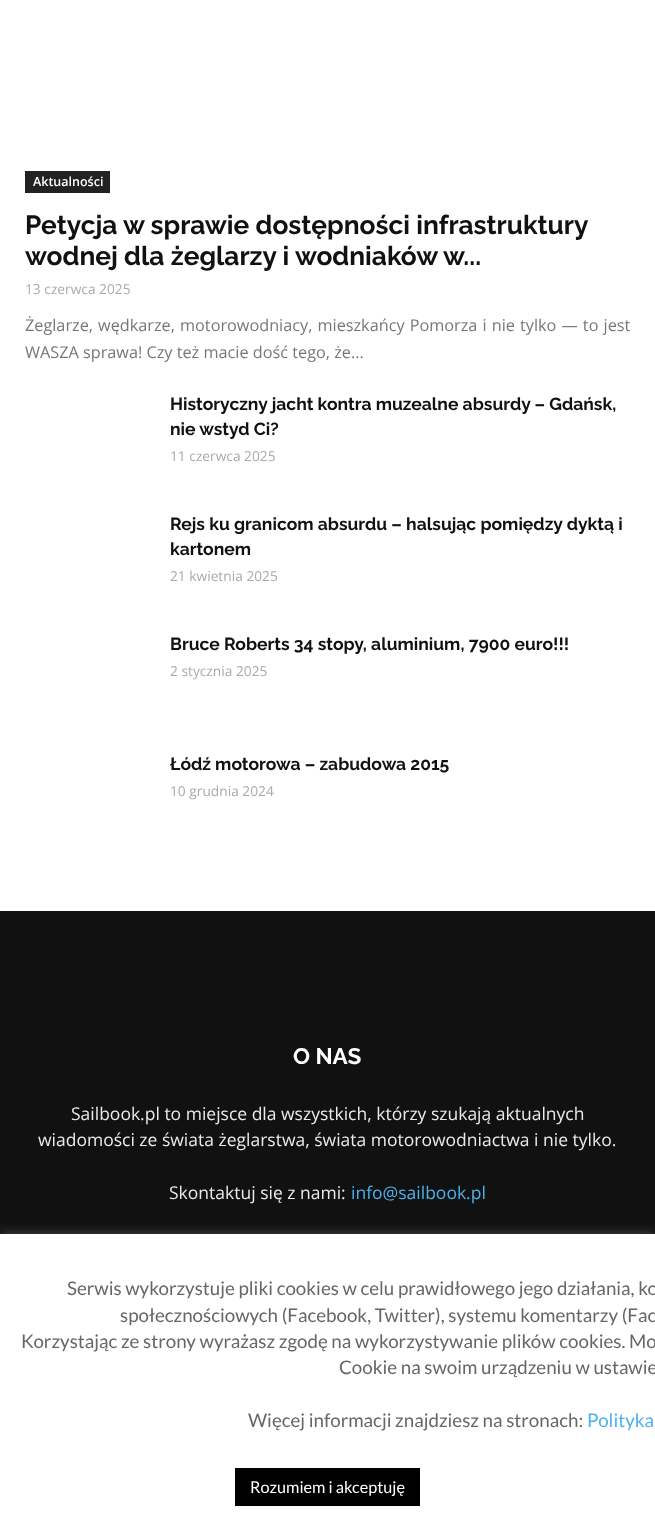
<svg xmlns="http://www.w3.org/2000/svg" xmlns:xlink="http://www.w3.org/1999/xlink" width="655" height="1527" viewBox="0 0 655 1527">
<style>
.cls-1{font:600 12.5px Open Sans;fill:#ffffff}
.cls-2{font:bold 26.25px Raleway;fill:#111111}
.cls-3{font:13.75px Open Sans;fill:#aaaaaa}
.cls-4{font:16.25px Open Sans;fill:#777777}
.cls-5{font:bold 17.5px Raleway;fill:#111111}
.cls-6{font:bold 22.5px Raleway;fill:#ffffff}
.cls-7{font:17.5px Open Sans;fill:#eaeaea}
.cls-8{font:17.5px Open Sans;fill:#4db2ec}
.cls-9{font:18.75px Lato;fill:#666666}
.cls-10{font:18.75px Lato;fill:#4db2ec}
.cls-11{font:16.25px Lato;fill:#ffffff}
</style>
<rect width="100%" height="100%" fill="#ffffff"/>
<rect fill="#222222" x="25" y="171" width="85" height="22"/>
<rect fill="#111111" x="0" y="911" width="655" height="323"/>
<rect fill="#acabab" fill-opacity="0.3" filter="blur(6px)" x="0" y="1233" width="655" height="293"/>
<rect fill="#ffffff" x="0" y="1234" width="655" height="293"/>
<rect fill="#000000" x="235" y="1468" width="185" height="38"/>
<text class="cls-1" x="33" y="186">Aktualności</text>
<text class="cls-2"><tspan x="25" y="234">Petycja w sprawie dostępności infrastruktury</tspan><tspan x="25" y="265">wodnej dla żeglarzy i wodniaków w...</tspan></text>
<text class="cls-3" x="25" y="294">13 czerwca 2025</text>
<text class="cls-4"><tspan x="25" y="331" word-spacing="0.9">Żeglarze, wędkarze, motorowodniacy, mieszkańcy Pomorza i nie tylko — to jest</tspan><tspan x="25" y="358">WASZA sprawa! Czy też macie dość tego, że...</tspan></text>
<text class="cls-5"><tspan x="170" y="410">Historyczny jacht kontra muzealne absurdy – Gdańsk,</tspan><tspan x="170" y="435">nie wstyd Ci?</tspan></text>
<text class="cls-3" x="170" y="461">11 czerwca 2025</text>
<text class="cls-5"><tspan x="170" y="530">Rejs ku granicom absurdu – halsując pomiędzy dyktą i</tspan><tspan x="170" y="555">kartonem</tspan></text>
<text class="cls-3" x="170" y="581">21 kwietnia 2025</text>
<text class="cls-5" x="170" y="650">Bruce Roberts 34 stopy, aluminium, 7900 euro!!!</text>
<text class="cls-3" x="170" y="676">2 stycznia 2025</text>
<text class="cls-5" x="170" y="770">Łódź motorowa – zabudowa 2015</text>
<text class="cls-3" x="170" y="796">10 grudnia 2024</text>
<text class="cls-6" x="293" y="1064">O NAS</text>
<text class="cls-7" x="71" y="1120">Sailbook.pl to miejsce dla wszystkich, którzy szukają aktualnych</text>
<text class="cls-7" x="38" y="1146">wiadomości ze świata żeglarstwa, świata motorowodniactwa i nie tylko.</text>
<text class="cls-7" x="169" y="1199">Skontaktuj się z nami:</text>
<text class="cls-8" x="351" y="1199">info@sailbook.pl</text>
<text class="cls-9" x="67" y="1295">Serwis wykorzystuje pliki cookies w celu prawidłowego jego działania, ko</text>
<text class="cls-9" x="120" y="1322">społecznościowych (Facebook, Twitter), systemu komentarzy (Fac</text>
<text class="cls-9" x="21" y="1348">Korzystając ze strony wyrażasz zgodę na wykorzystywanie plików cookies. Mo</text>
<text class="cls-9" x="339" y="1374">Cookie na swoim urządzeniu w ustawie</text>
<text class="cls-9" x="248" y="1427">Więcej informacji znajdziesz na stronach:</text>
<text class="cls-10" x="587" y="1427">Polityka</text>
<text class="cls-11" x="250" y="1493">Rozumiem i akceptuję</text>
</svg>
